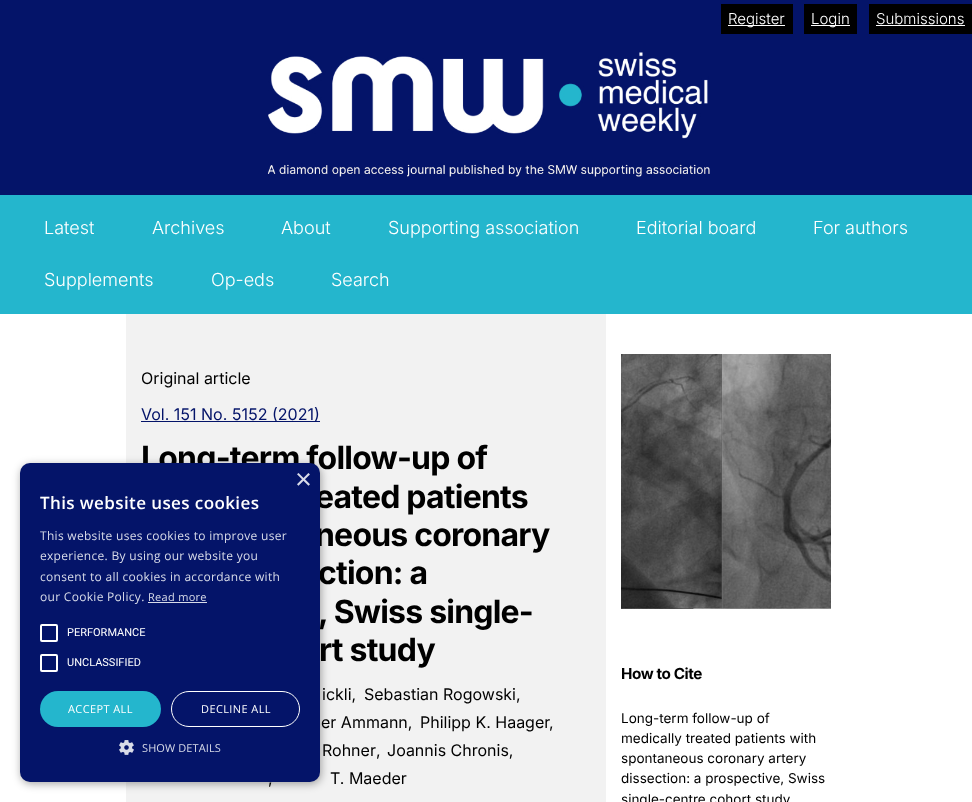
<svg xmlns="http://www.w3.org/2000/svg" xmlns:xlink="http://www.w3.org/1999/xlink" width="972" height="802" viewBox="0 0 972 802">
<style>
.cls-1{font:300 15px Inter;fill:#ffffff}
.cls-2{font:300 18px Inter;fill:#ffffff}
.cls-3{font:16px Inter;fill:#000000}
.cls-4{font:16px Inter;fill:#041469}
.cls-5{font:bold 32px Inter;letter-spacing:-0.8px;fill:#000000}
.cls-6{font:bold 15.25px Inter;letter-spacing:-0.4px;fill:#000000}
.cls-7{font:13.5px Inter;fill:#000000}
.cls-8{font:29px Liberation Sans;fill:#d9dce9}
.cls-9{font:600 17px Open Sans;letter-spacing:0.4px;fill:#ffffff}
.cls-10{font:12px Open Sans;letter-spacing:0.3px;fill:#d9dce9}
.cls-11{font:11px Open Sans;letter-spacing:0.3px;fill:#d9dce9}
.cls-12{font:11px Roboto;fill:#ffffff}
.cls-13{font:11px Open Sans;letter-spacing:0.4px;fill:#ffffff}
.cls-14{font:11px Open Sans;letter-spacing:0.1px;fill:#d9dce9}
</style>
<rect width="100%" height="100%" fill="#ffffff"/>
<rect fill="#041469" x="0" y="0" width="972" height="195"/>
<rect fill="#000000" x="721" y="4" width="72" height="30"/>
<rect fill="#ffffff" x="728" y="25" width="57" height="1"/>
<rect fill="#000000" x="804" y="4" width="53" height="30"/>
<rect fill="#ffffff" x="811" y="25" width="39" height="1"/>
<rect fill="#000000" x="869" y="4" width="103" height="30"/>
<rect fill="#ffffff" x="876" y="25" width="89" height="1"/>
<image xlink:href="image0.png" x="267" y="52" width="443" height="125"/>
<rect fill="#24b6cd" x="0" y="195" width="972" height="119"/>
<rect fill="#f2f2f2" x="126" y="314" width="480" height="488"/>
<rect fill="#041469" x="141" y="421" width="179" height="1"/>
<image xlink:href="image1.png" x="621" y="354" width="210" height="255"/>
<rect fill="#000000" fill-opacity="0.35" filter="blur(4px)" x="21" y="465" width="300" height="319" rx="10"/>
<text class="cls-1" x="728" y="24">Register</text>
<text class="cls-1" x="811" y="24">Login</text>
<text class="cls-1" x="876" y="24">Submissions</text>
<text class="cls-2" x="44" y="234">Latest</text>
<text class="cls-2" x="152" y="234">Archives</text>
<text class="cls-2" x="281" y="234">About</text>
<text class="cls-2" x="388" y="234">Supporting association</text>
<text class="cls-2" x="636" y="234">Editorial board</text>
<text class="cls-2" x="813" y="234">For authors</text>
<text class="cls-2" x="44" y="286">Supplements</text>
<text class="cls-2" x="211" y="286">Op-eds</text>
<text class="cls-2" x="331" y="286">Search</text>
<text class="cls-3" x="141" y="384">Original article</text>
<text class="cls-4" x="141" y="420">Vol. 151 No. 5152 (2021)</text>
<text class="cls-5" x="141" y="469">Long-term follow-up of</text>
<text class="cls-5"><tspan x="315" y="508">eated patients</tspan><tspan x="315" y="546">neous coronary</tspan></text>
<text class="cls-5"><tspan x="318" y="584">ction: a</tspan><tspan x="318" y="623">, Swiss single-</tspan></text>
<text class="cls-5" x="319" y="661">rt study</text>
<text class="cls-3" x="322" y="700">ickli,</text>
<text class="cls-3" x="364" y="700">Sebastian Rogowski,</text>
<text class="cls-3" x="321" y="728">er Ammann,</text>
<text class="cls-3" x="420" y="728">Philipp K. Haager</text>
<text class="cls-3" x="549" y="728">,</text>
<text class="cls-3" x="322" y="756" word-spacing="-1">Rohner</text>
<text class="cls-3" x="376" y="756">,</text>
<text class="cls-3" x="387" y="756">Joannis Chronis,</text>
<text class="cls-3" x="268" y="784">,</text>
<text class="cls-3" x="330" y="784">T. Maeder</text>
<text class="cls-6" x="621" y="679">How to Cite</text>
<text class="cls-7"><tspan x="621" y="723">Long-term follow-up of</tspan><tspan x="621" y="743">medically treated patients with</tspan><tspan x="621" y="763">spontaneous coronary artery</tspan><tspan x="621" y="783">dissection: a prospective, Swiss</tspan><tspan x="621" y="804">single-centre cohort study</tspan></text>
<rect fill="#041469" x="20" y="463" width="300" height="319" rx="10"/>
<text class="cls-8" x="295" y="489">×</text>
<text class="cls-9" x="40" y="509">This website uses cookies</text>
<text class="cls-10"><tspan x="40" y="540">This website uses cookies to improve user</tspan><tspan x="40" y="560">experience. By using our website you</tspan><tspan x="40" y="581">consent to all cookies in accordance with</tspan><tspan x="40" y="601">our Cookie Policy.</tspan></text>
<text class="cls-11" x="148" y="601">Read more</text>
<rect fill="#d9dce9" x="148" y="602" width="59" height="1"/>
<rect fill="none" stroke="#ffffff" stroke-width="2" x="41" y="625" width="16" height="16" rx="1"/>
<text class="cls-12" x="67" y="636">PERFORMANCE</text>
<rect fill="none" stroke="#ffffff" stroke-width="2" x="41" y="655" width="16" height="16" rx="1"/>
<text class="cls-12" x="67" y="666">UNCLASSIFIED</text>
<rect fill="#24b6cd" x="40" y="691" width="121" height="36" rx="18"/>
<text class="cls-13" x="68" y="713">ACCEPT ALL</text>
<rect fill="none" stroke="#ffffff" x="171.5" y="691.5" width="128" height="35" rx="17.5"/>
<text class="cls-13" x="201" y="713">DECLINE ALL</text>
<image xlink:href="image2.png" x="119" y="740" width="15" height="15"/>
<text class="cls-14" x="142" y="752">SHOW DETAILS</text>
</svg>
